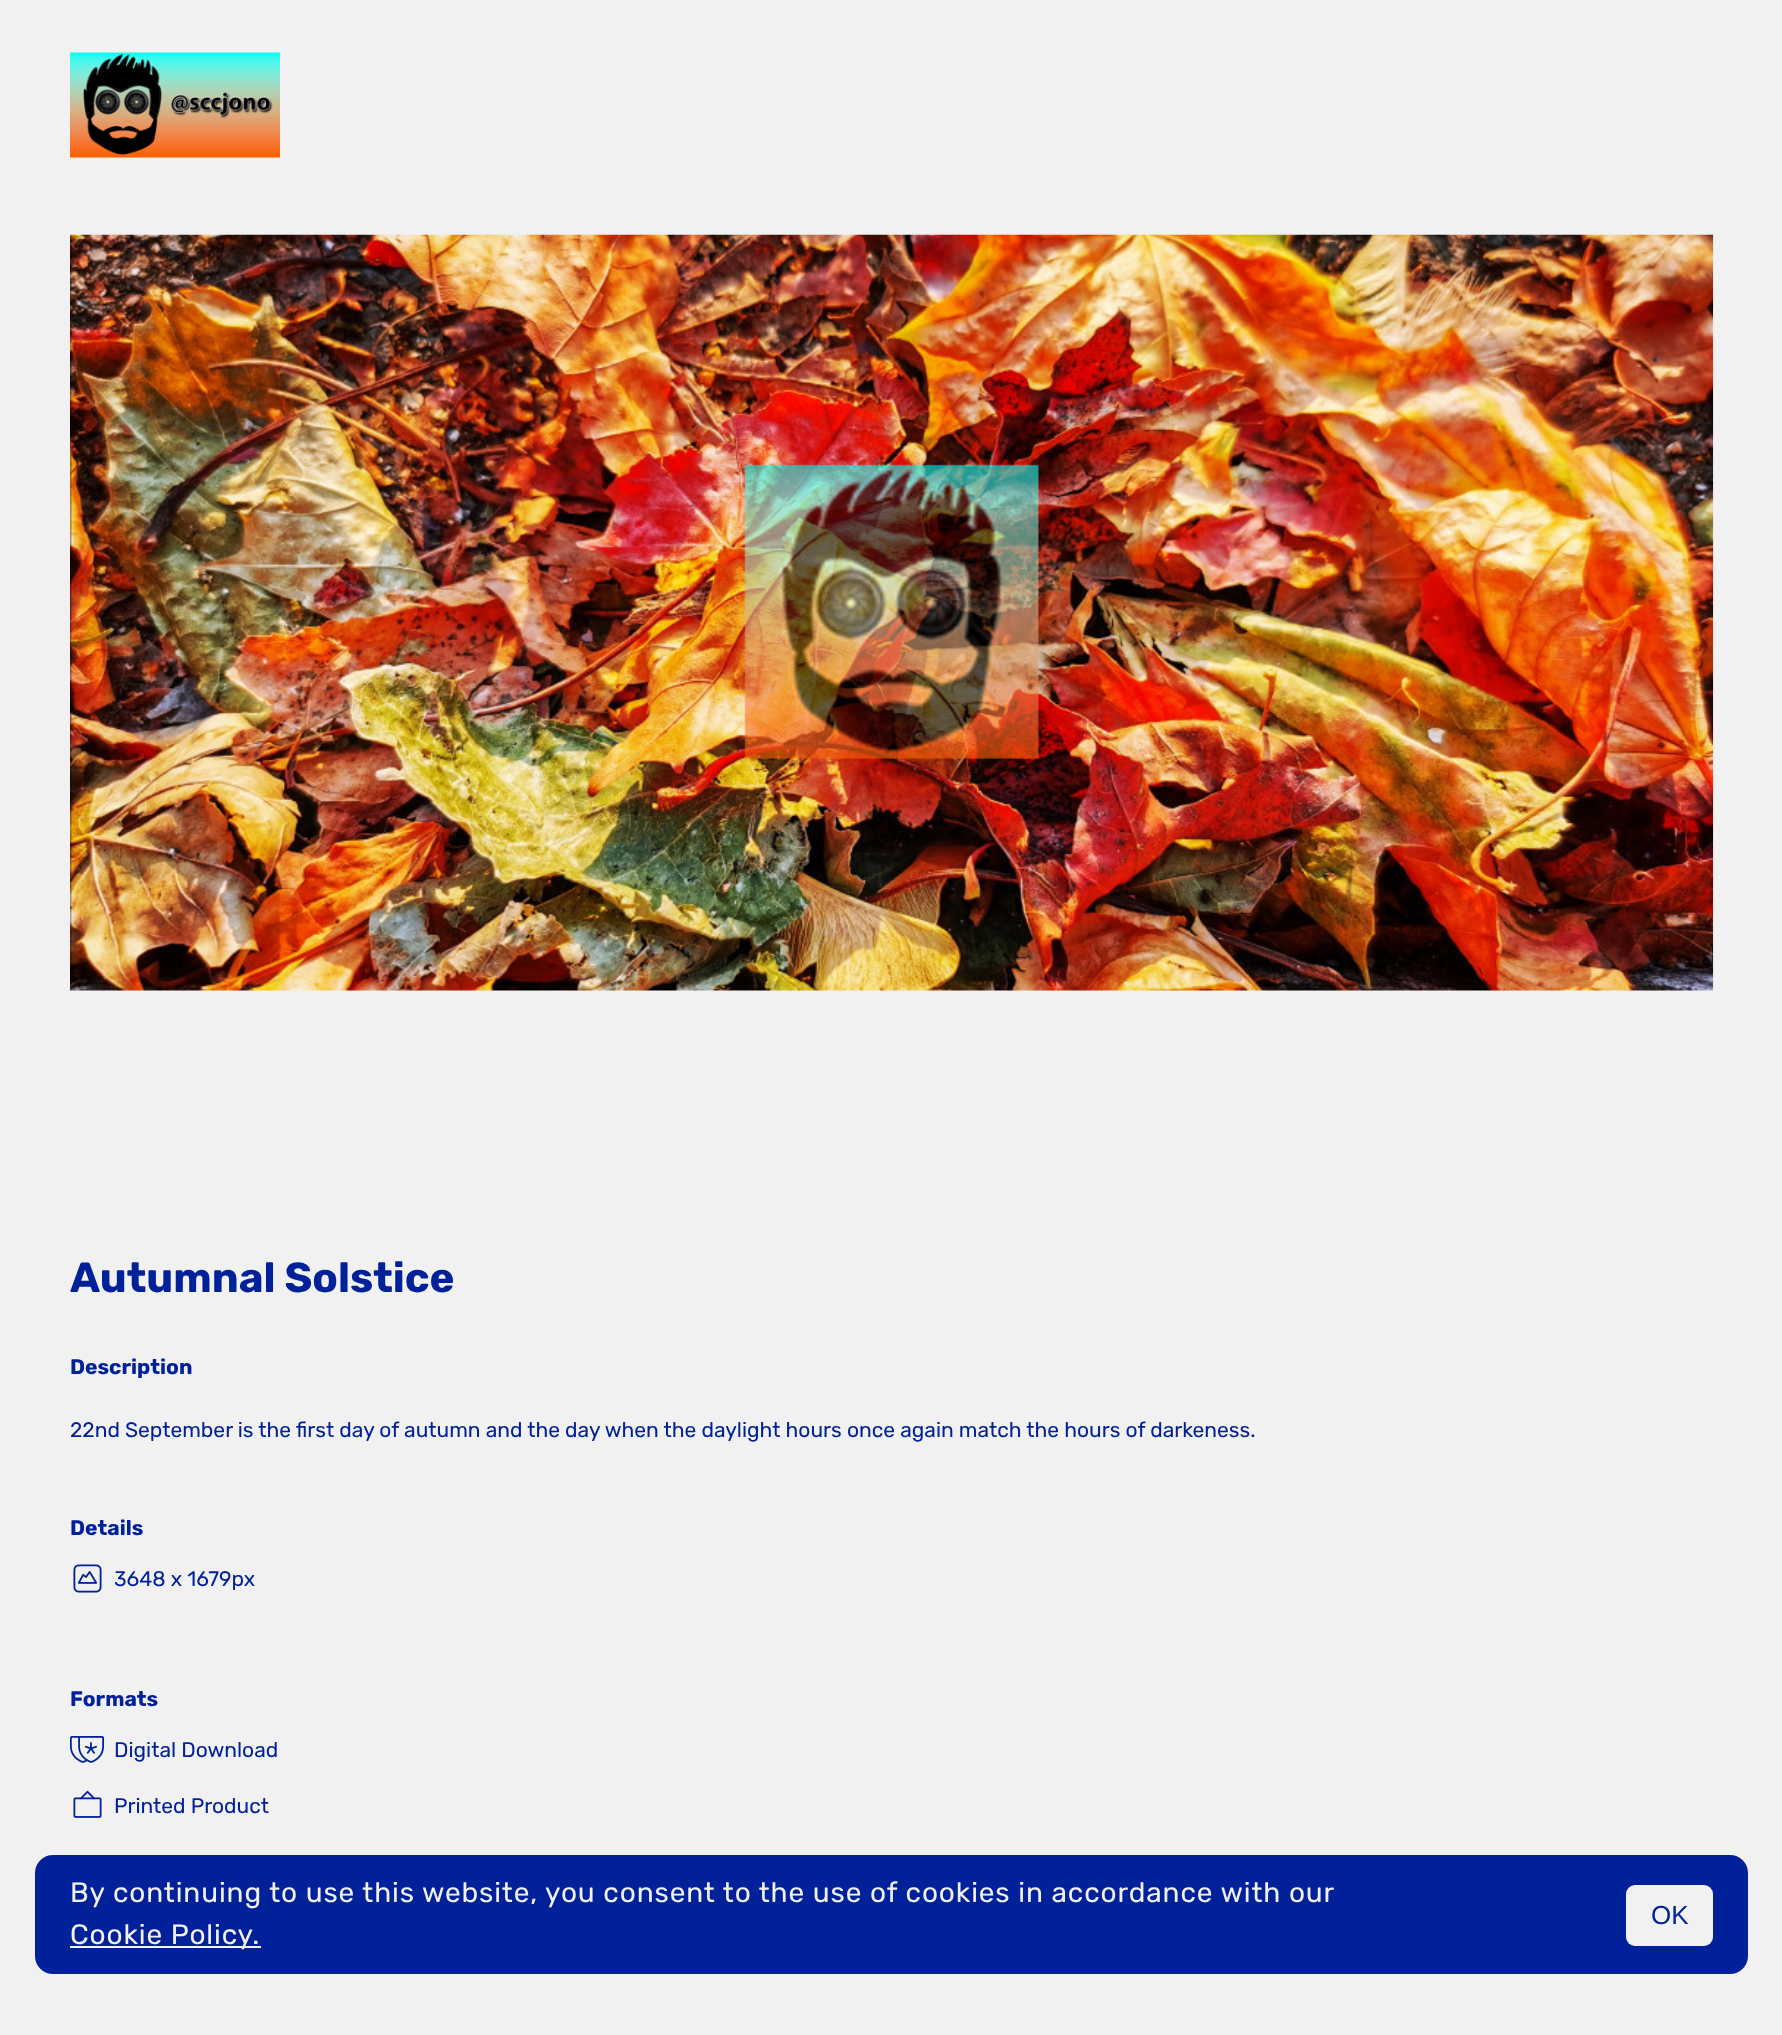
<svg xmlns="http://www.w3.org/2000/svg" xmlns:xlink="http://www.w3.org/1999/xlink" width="1782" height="2035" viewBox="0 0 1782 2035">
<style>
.cls-1{font:bold 42px Rubik;fill:#002199}
.cls-2{font:bold 21px Rubik;fill:#002199}
.cls-3{font:21px Rubik;fill:#002199}
.cls-4{font:28px Rubik;letter-spacing:0.88px;fill:#f1f1f1}
.cls-5{font:26px Liberation Sans;fill:#002199}
</style>
<rect width="100%" height="100%" fill="#f1f1f1"/>
<image xlink:href="image0.png" x="70" y="52" width="210" height="106"/>
<image xlink:href="image1.png" x="70" y="234" width="1644" height="757"/>
<image xlink:href="image2.png" x="73" y="1564" width="29" height="29"/>
<image xlink:href="image3.png" x="70" y="1736" width="35" height="27"/>
<image xlink:href="image4.png" x="73" y="1790" width="29" height="28"/>
<rect fill="#002199" x="35" y="1855" width="1713" height="119" rx="18"/>
<rect fill="#f1f1f1" x="70" y="1946" width="191" height="2"/>
<rect fill="#f1f1f1" x="1626" y="1885" width="87" height="61" rx="9"/>
<text class="cls-1" x="70" y="1292">Autumnal Solstice</text>
<text class="cls-2" x="70" y="1374">Description</text>
<text class="cls-3" x="70" y="1437">22nd September is the first day of autumn and the day when the daylight hours once again match the hours of darkeness.</text>
<text class="cls-2" x="70" y="1535">Details</text>
<text class="cls-3" x="114" y="1586">3648 x 1679px</text>
<text class="cls-2" x="70" y="1706">Formats</text>
<text class="cls-3" x="114" y="1757">Digital Download</text>
<text class="cls-3" x="114" y="1813">Printed Product</text>
<text class="cls-4"><tspan x="70" y="1902">By continuing to use this website, you consent to the use of cookies in accordance with our</tspan><tspan x="70" y="1944">Cookie Policy.</tspan></text>
<text class="cls-5" x="1651" y="1924">OK</text>
</svg>
